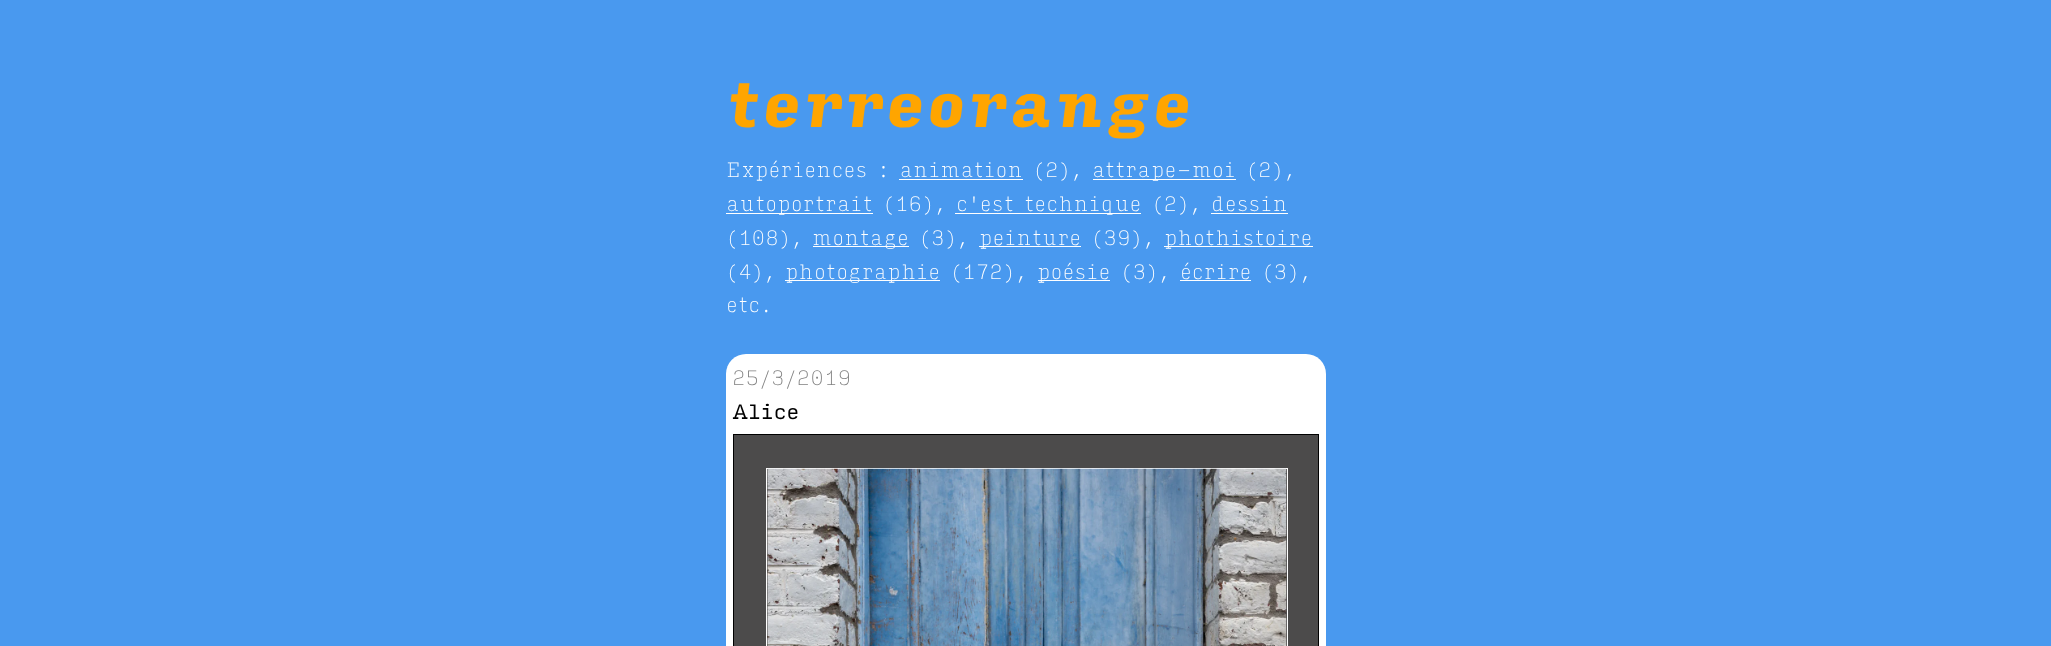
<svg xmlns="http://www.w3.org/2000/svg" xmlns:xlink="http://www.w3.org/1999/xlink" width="2051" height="646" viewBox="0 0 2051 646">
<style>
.cls-1{font:italic 900 60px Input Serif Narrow;fill:#ffa500}
.cls-2{font:100 20px Input Serif Narrow;fill:#ffffff}
.cls-3{font:100 20px Input Serif Narrow;fill:#808080}
.cls-4{font:20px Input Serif;fill:#000000}
</style>
<rect width="100%" height="100%" fill="#4999ef"/>
<rect fill="#ffffff" x="1093" y="179" width="143" height="1"/>
<rect fill="#ffffff" x="899" y="179" width="124" height="1"/>
<rect fill="#ffffff" x="726" y="213" width="147" height="1"/>
<rect fill="#ffffff" x="955" y="213" width="186" height="1"/>
<rect fill="#ffffff" x="1211" y="213" width="77" height="1"/>
<rect fill="#ffffff" x="813" y="246" width="96" height="1"/>
<rect fill="#ffffff" x="979" y="246" width="102" height="1"/>
<rect fill="#ffffff" x="1164" y="246" width="149" height="1"/>
<rect fill="#ffffff" x="785" y="280" width="155" height="1"/>
<rect fill="#ffffff" x="1038" y="280" width="72" height="1"/>
<rect fill="#ffffff" x="1180" y="280" width="71" height="1"/>
<rect fill="#ffffff" x="726" y="354" width="600" height="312" rx="20"/>
<rect fill="#4c4b4b" stroke="#000000" x="733.5" y="434.5" width="585" height="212"/>
<rect fill="none" stroke="#ffffff" x="766.5" y="468.5" width="521" height="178"/>
<image xlink:href="image0.png" x="767" y="468" width="520" height="178"/>
<text class="cls-1" x="726" y="127">terreorange</text>
<text class="cls-2" x="726" y="177">Expériences : animation (2),</text>
<text class="cls-2" x="1092" y="177">attrape-moi (2),</text>
<text class="cls-2" x="726" y="211">autoportrait (16),</text>
<text class="cls-2" x="956" y="211">c'est technique (2), dessin</text>
<text class="cls-2" x="726" y="245">(108),</text>
<text class="cls-2" x="812" y="245">montage (3),</text>
<text class="cls-2" x="979" y="245">peinture (39),</text>
<text class="cls-2" x="1164" y="245">phothistoire</text>
<text class="cls-2" x="726" y="279">(4),</text>
<text class="cls-2" x="785" y="279">photographie (172),</text>
<text class="cls-2" x="1037" y="279">poésie (3), écrire (3),</text>
<text class="cls-2" x="726" y="312">etc.</text>
<text class="cls-3" x="732" y="385">25/3/2019</text>
<text class="cls-4" x="732" y="419">Alice</text>
</svg>
